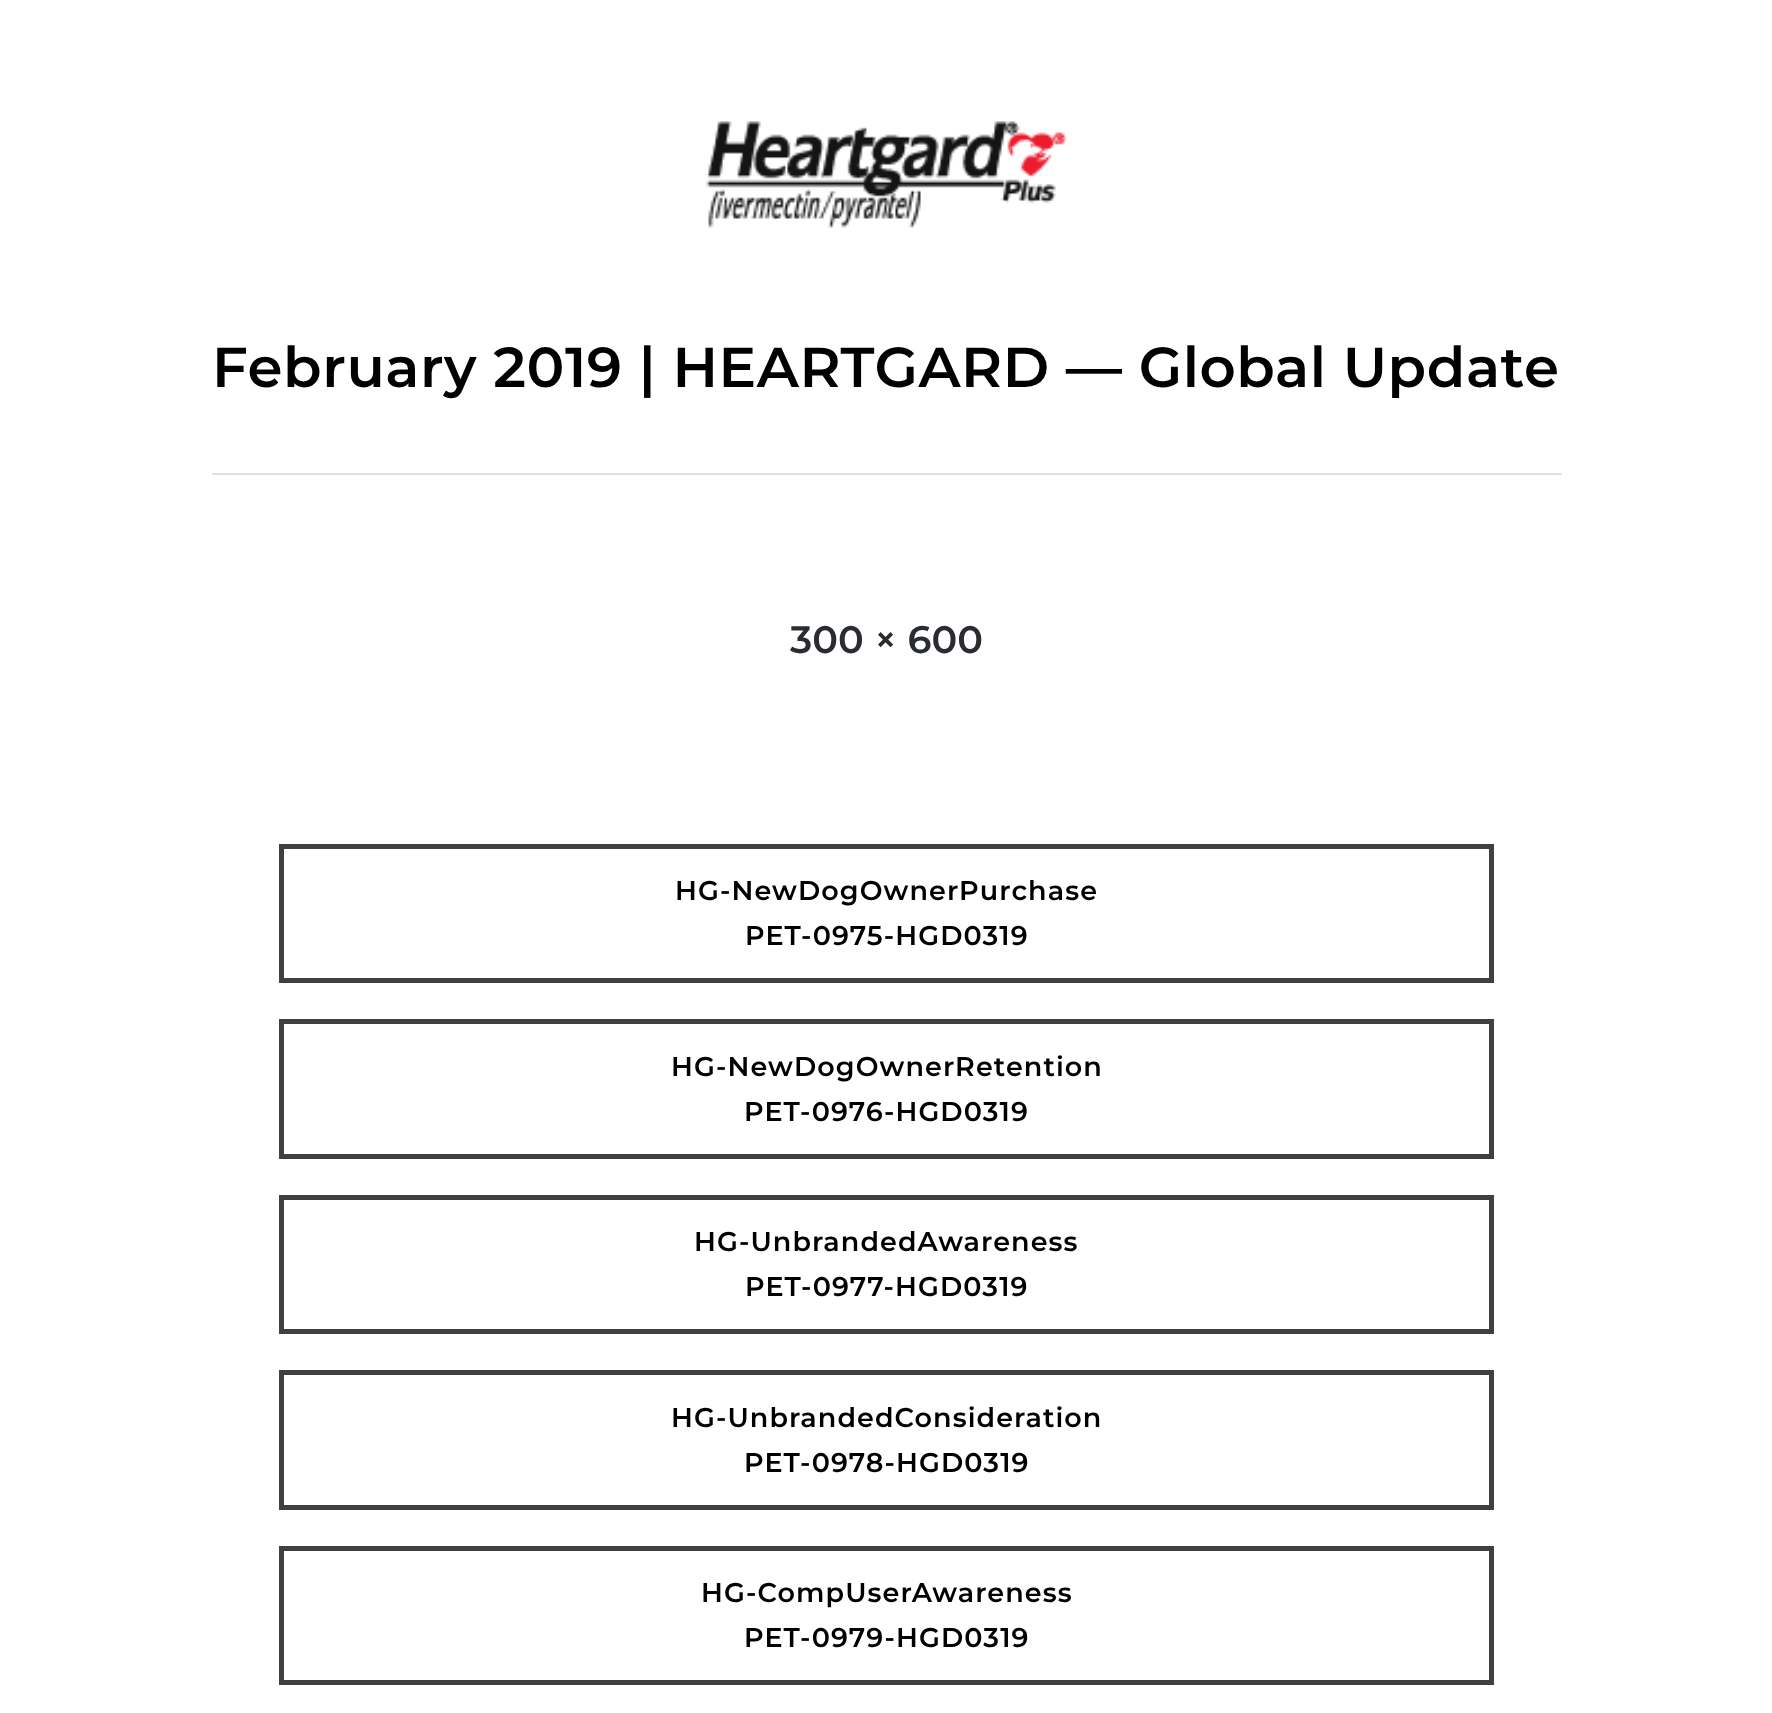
<svg xmlns="http://www.w3.org/2000/svg" xmlns:xlink="http://www.w3.org/1999/xlink" width="1772" height="1713" viewBox="0 0 1772 1713">
<style>
.cls-1{font:600 56.25px Montserrat;letter-spacing:0.55px;fill:#000000}
.cls-2{font:600 38.25px Montserrat;fill:#292c31}
.cls-3{font:600 27px Montserrat;letter-spacing:1.1px;fill:#000000}
</style>
<rect width="100%" height="100%" fill="#ffffff"/>
<image xlink:href="image0.png" x="706" y="121" width="361" height="107"/>
<rect fill="#e0e0e0" x="212" y="473" width="1350" height="2"/>
<rect fill="none" stroke="#404040" stroke-width="5" x="281.5" y="846.5" width="1210" height="134"/>
<rect fill="none" stroke="#404040" stroke-width="5" x="281.5" y="1021.5" width="1210" height="135"/>
<rect fill="none" stroke="#404040" stroke-width="5" x="281.5" y="1197.5" width="1210" height="134"/>
<rect fill="none" stroke="#404040" stroke-width="5" x="281.5" y="1372.5" width="1210" height="135"/>
<rect fill="none" stroke="#404040" stroke-width="5" x="281.5" y="1548.5" width="1210" height="134"/>
<text class="cls-1" x="212" y="387">February 2019 | HEARTGARD — Global Update</text>
<text class="cls-2" x="790" y="653">300 × 600</text>
<text class="cls-3" x="675" y="900">HG-NewDogOwnerPurchase</text>
<text class="cls-3" x="745" y="945">PET-0975-HGD0319</text>
<text class="cls-3" x="671" y="1076">HG-NewDogOwnerRetention</text>
<text class="cls-3" x="744" y="1121">PET-0976-HGD0319</text>
<text class="cls-3" x="694" y="1251">HG-UnbrandedAwareness</text>
<text class="cls-3" x="745" y="1296">PET-0977-HGD0319</text>
<text class="cls-3" x="671" y="1427">HG-UnbrandedConsideration</text>
<text class="cls-3" x="744" y="1472">PET-0978-HGD0319</text>
<text class="cls-3" x="701" y="1602">HG-CompUserAwareness</text>
<text class="cls-3" x="744" y="1647">PET-0979-HGD0319</text>
</svg>
